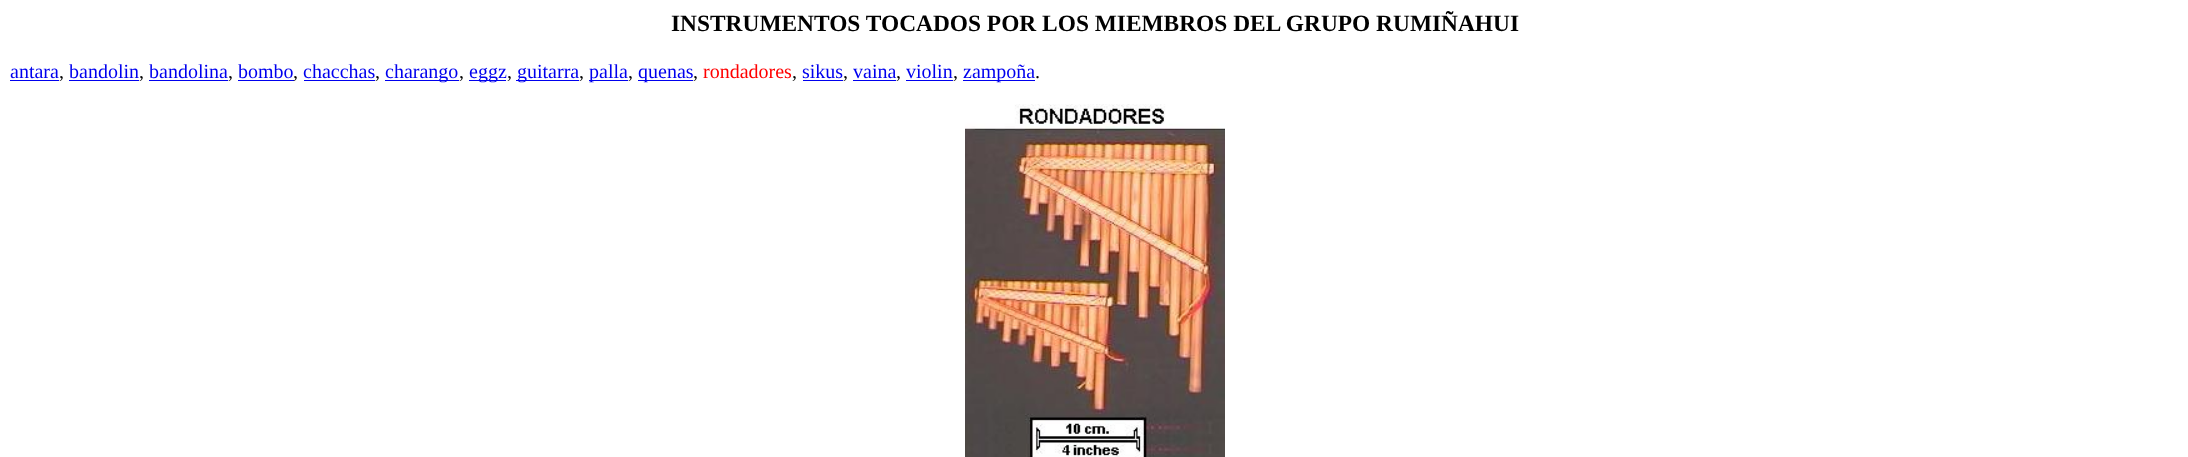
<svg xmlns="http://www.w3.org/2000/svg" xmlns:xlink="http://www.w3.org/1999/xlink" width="2188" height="457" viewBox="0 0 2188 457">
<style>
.cls-1{font:bold 23.4px Liberation Serif;fill:#000000}
.cls-2{font:20px Liberation Serif;fill:#0000ee}
.cls-3{font:20px Liberation Serif;fill:#000000}
.cls-4{font:20px Liberation Serif;fill:#ff0000}
</style>
<rect width="100%" height="100%" fill="#ffffff"/>
<rect fill="#0000ee" x="10" y="80" width="49" height="1"/>
<rect fill="#0000ee" x="69" y="80" width="70" height="1"/>
<rect fill="#0000ee" x="149" y="80" width="79" height="1"/>
<rect fill="#0000ee" x="238" y="80" width="56" height="1"/>
<rect fill="#0000ee" x="304" y="80" width="71" height="1"/>
<rect fill="#0000ee" x="385" y="80" width="74" height="1"/>
<rect fill="#0000ee" x="469" y="80" width="37" height="1"/>
<rect fill="#0000ee" x="516" y="80" width="63" height="1"/>
<rect fill="#0000ee" x="589" y="80" width="39" height="1"/>
<rect fill="#0000ee" x="638" y="80" width="55" height="1"/>
<rect fill="#0000ee" x="803" y="80" width="40" height="1"/>
<rect fill="#0000ee" x="853" y="80" width="43" height="1"/>
<rect fill="#0000ee" x="906" y="80" width="47" height="1"/>
<rect fill="#0000ee" x="963" y="80" width="72" height="1"/>
<image xlink:href="image0.png" x="965" y="104" width="260" height="353"/>
<text class="cls-1" x="671" y="31">INSTRUMENTOS TOCADOS POR LOS MIEMBROS DEL GRUPO RUMIÑAHUI</text>
<text class="cls-2" x="10" y="78">antara</text>
<text class="cls-3" x="59" y="78">,</text>
<text class="cls-2" x="69" y="78">bandolin</text>
<text class="cls-3" x="139" y="78">,</text>
<text class="cls-2" x="149" y="78">bandolina</text>
<text class="cls-3" x="228" y="78">,</text>
<text class="cls-2" x="238" y="78">bombo</text>
<text class="cls-3" x="293" y="78">,</text>
<text class="cls-2" x="303" y="78">chacchas</text>
<text class="cls-3" x="375" y="78">,</text>
<text class="cls-2" x="385" y="78">charango</text>
<text class="cls-3" x="459" y="78">,</text>
<text class="cls-2" x="469" y="78">eggz</text>
<text class="cls-3" x="507" y="78">,</text>
<text class="cls-2" x="517" y="78">guitarra</text>
<text class="cls-3" x="579" y="78">,</text>
<text class="cls-2" x="589" y="78">palla</text>
<text class="cls-3" x="628" y="78">,</text>
<text class="cls-2" x="638" y="78">quenas</text>
<text class="cls-3" x="693" y="78">,</text>
<text class="cls-4" x="703" y="78">rondadores</text>
<text class="cls-3" x="792" y="78">,</text>
<text class="cls-2" x="802" y="78">sikus</text>
<text class="cls-3" x="843" y="78">,</text>
<text class="cls-2" x="853" y="78">vaina</text>
<text class="cls-3" x="896" y="78">,</text>
<text class="cls-2" x="906" y="78">violin</text>
<text class="cls-3" x="953" y="78">,</text>
<text class="cls-2" x="963" y="78">zampoña</text>
<text class="cls-3" x="1035" y="78">.</text>
</svg>
